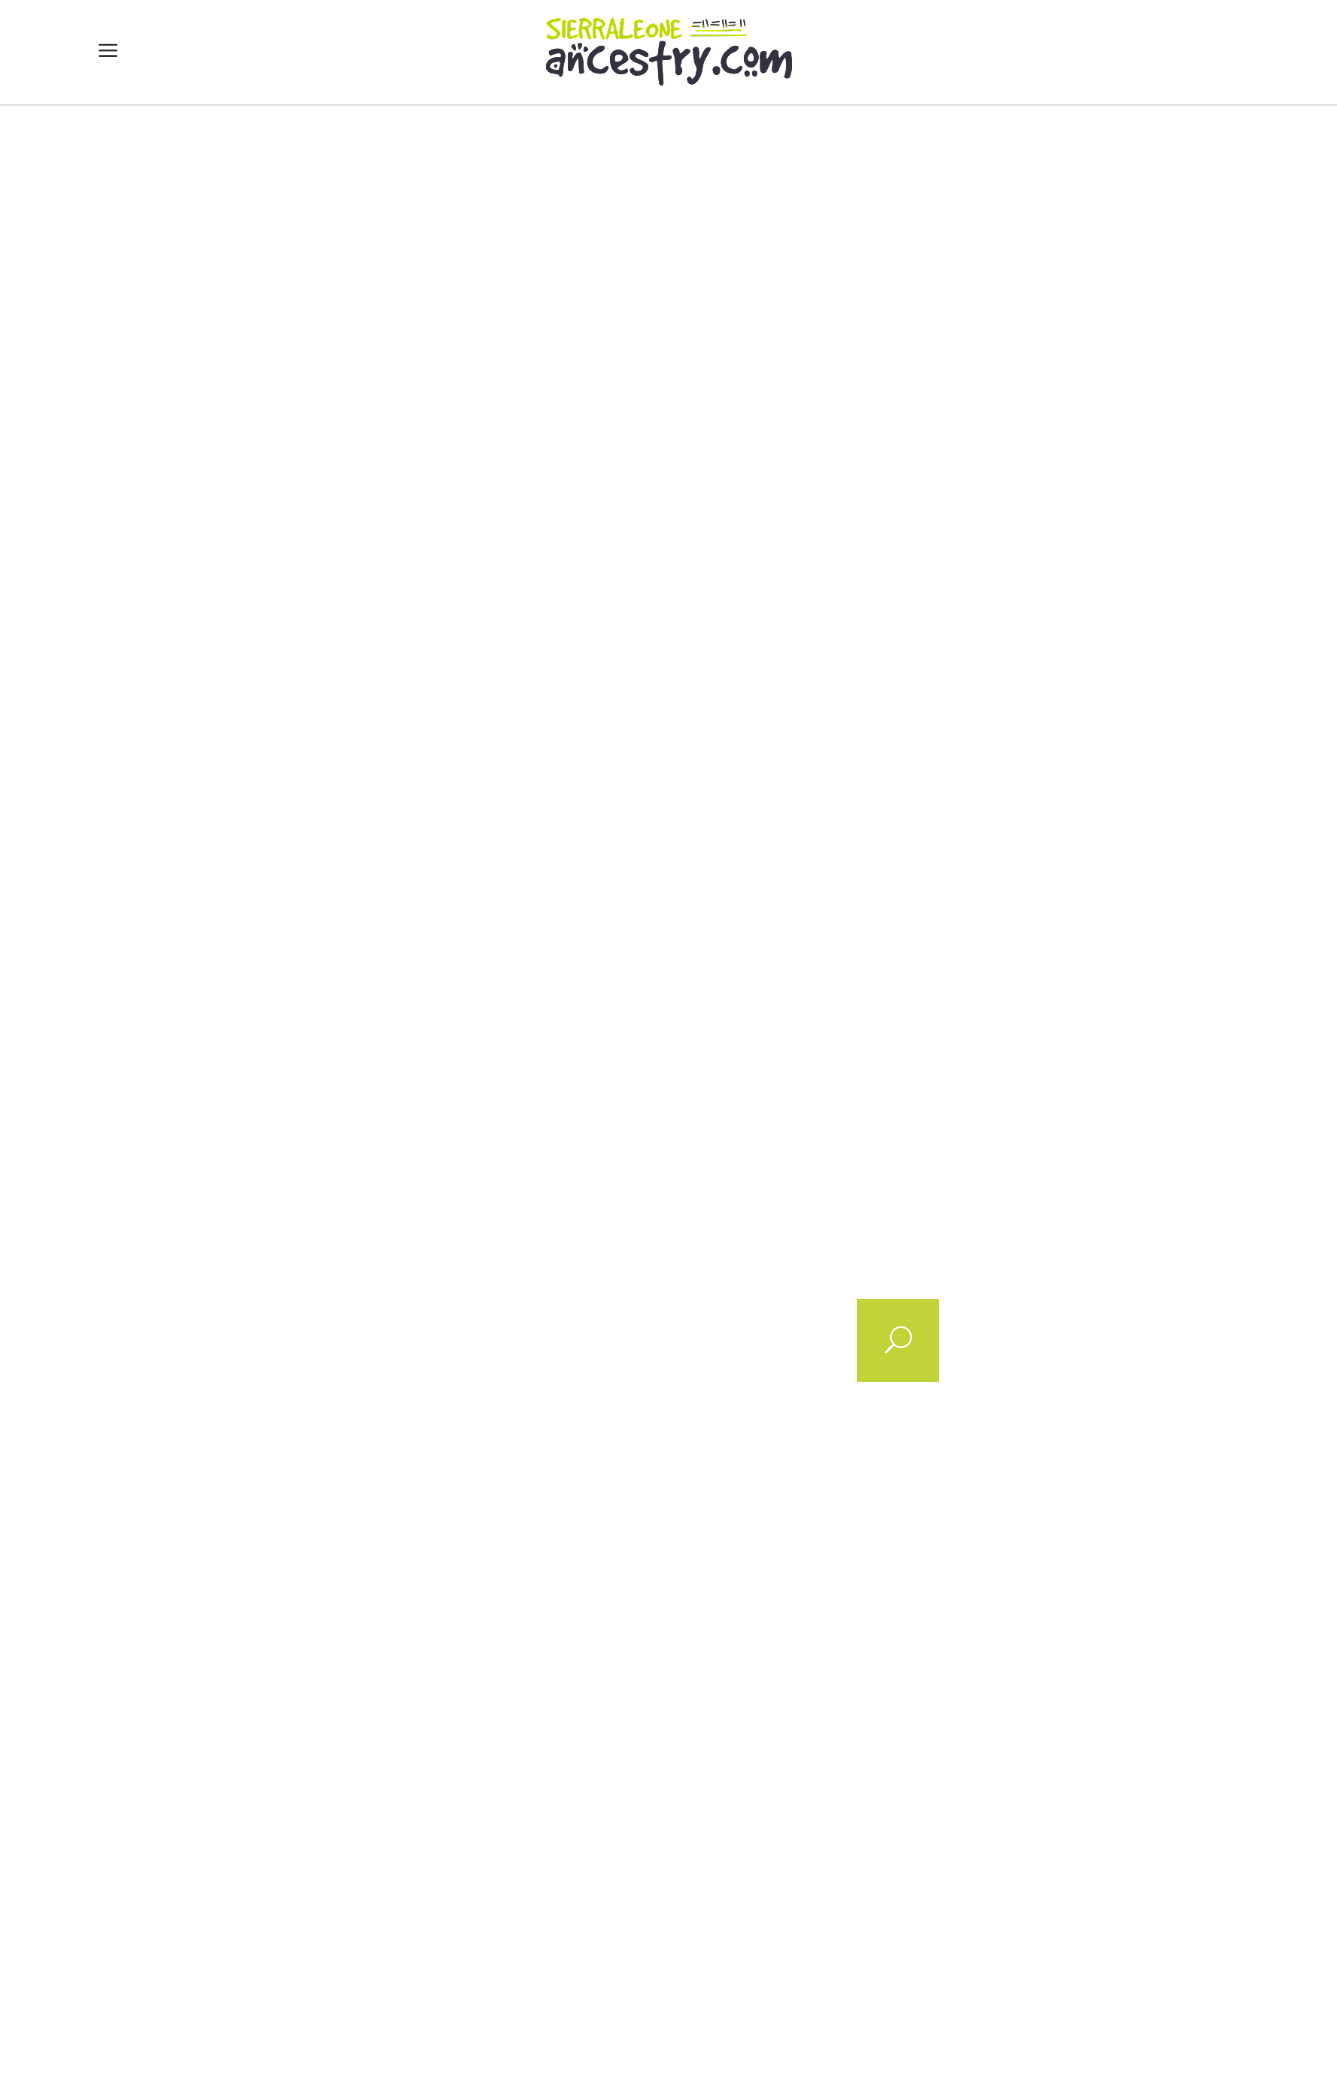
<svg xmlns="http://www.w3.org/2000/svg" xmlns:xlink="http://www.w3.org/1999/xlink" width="1337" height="2074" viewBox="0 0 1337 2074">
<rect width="100%" height="100%" fill="#ffffff"/>
<rect fill="#e1e1e1" x="0" y="104" width="1337" height="2"/>
<image xlink:href="image0.png" x="98" y="43" width="20" height="14"/>
<image xlink:href="image1.png" x="546" y="18" width="246" height="68"/>
<rect fill="#c2d338" x="857" y="1299" width="82" height="83"/>
<image xlink:href="image2.png" x="884" y="1326" width="28" height="28"/>
</svg>
